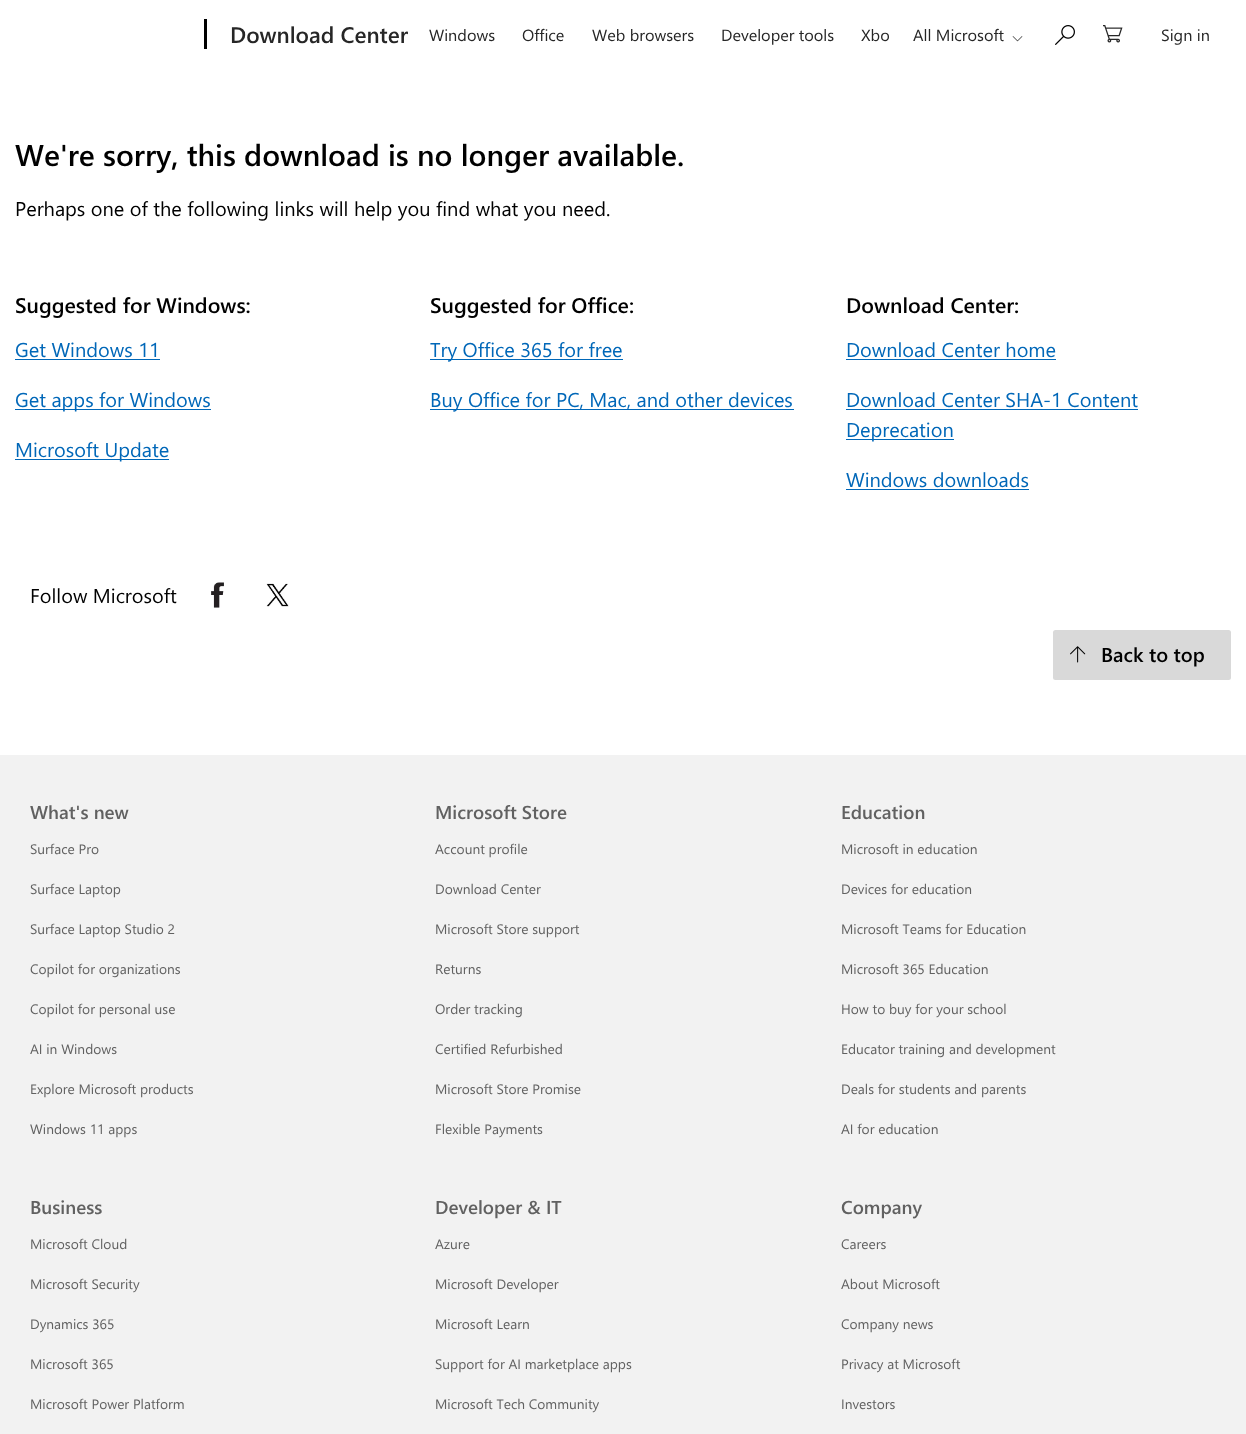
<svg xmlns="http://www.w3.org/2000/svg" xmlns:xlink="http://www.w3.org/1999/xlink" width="1246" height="1434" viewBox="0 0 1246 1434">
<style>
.cls-1{font:600 22.5px Segoe UI;fill:#262626}
.cls-2{font:16.25px Segoe UI;fill:#262626}
.cls-3{font:600 30px Segoe UI;fill:#000000}
.cls-4{font:20px Segoe UI;fill:#000000}
.cls-5{font:600 21.25px Segoe UI;fill:#000000}
.cls-6{font:20px Segoe UI;fill:#0067b8}
.cls-7{font:600 20px Segoe UI;fill:#000000}
.cls-8{font:600 18.75px Segoe UI;fill:#616161}
.cls-9{font:13.75px Segoe UI;fill:#616161}
</style>
<rect width="100%" height="100%" fill="#ffffff"/>
<rect fill="#000000" x="204" y="19" width="3" height="30"/>
<image xlink:href="image0.png" x="1012" y="36" width="11" height="6"/>
<image xlink:href="image1.png" x="1055" y="25" width="20" height="20"/>
<image xlink:href="image2.png" x="1103" y="25" width="20" height="18"/>
<rect fill="#0067b8" x="15" y="359" width="145" height="1"/>
<rect fill="#0067b8" x="15" y="409" width="196" height="1"/>
<rect fill="#0067b8" x="15" y="459" width="154" height="1"/>
<rect fill="#0067b8" x="430" y="359" width="193" height="1"/>
<rect fill="#0067b8" x="430" y="409" width="364" height="1"/>
<rect fill="#0067b8" x="846" y="359" width="210" height="1"/>
<rect fill="#0067b8" x="846" y="409" width="292" height="1"/>
<rect fill="#0067b8" x="846" y="439" width="108" height="1"/>
<rect fill="#0067b8" x="846" y="489" width="183" height="1"/>
<image xlink:href="image3.png" x="211" y="582" width="13" height="26"/>
<image xlink:href="image4.png" x="266" y="583" width="23" height="24"/>
<rect fill="#d9d9d9" x="1053" y="630" width="178" height="50" rx="2.5"/>
<image xlink:href="image5.png" x="1070" y="646" width="16" height="17"/>
<rect fill="#f2f2f2" x="0" y="755" width="1246" height="679"/>
<text class="cls-1" x="230" y="43">Download Center</text>
<text class="cls-2" x="429" y="41">Windows</text>
<text class="cls-2" x="522" y="41">Office</text>
<text class="cls-2" x="592" y="41">Web browsers</text>
<text class="cls-2" x="721" y="41">Developer tools</text>
<text class="cls-2" x="861" y="41">Xbo</text>
<text class="cls-2" x="913" y="41">All Microsoft</text>
<text class="cls-2" x="1161" y="41">Sign in</text>
<text class="cls-3" x="15" y="166">We're sorry, this download is no longer available.</text>
<text class="cls-4" x="15" y="216">Perhaps one of the following links will help you find what you need.</text>
<text class="cls-5" x="15" y="313">Suggested for Windows:</text>
<text class="cls-6" x="15" y="357">Get Windows 11</text>
<text class="cls-6" x="15" y="407">Get apps for Windows</text>
<text class="cls-6" x="15" y="457">Microsoft Update</text>
<text class="cls-5" x="430" y="313">Suggested for Office:</text>
<text class="cls-6" x="430" y="357">Try Office 365 for free</text>
<text class="cls-6" x="430" y="407">Buy Office for PC, Mac, and other devices</text>
<text class="cls-5" x="846" y="313">Download Center:</text>
<text class="cls-6" x="846" y="357">Download Center home</text>
<text class="cls-6"><tspan x="846" y="407">Download Center SHA-1 Content</tspan><tspan x="846" y="437">Deprecation</tspan></text>
<text class="cls-6" x="846" y="487">Windows downloads</text>
<text class="cls-4" x="30" y="603">Follow Microsoft</text>
<text class="cls-7" x="1101" y="662">Back to top</text>
<text class="cls-8" x="30" y="819">What's new</text>
<text class="cls-9" x="30" y="854">Surface Pro</text>
<text class="cls-9" x="30" y="894">Surface Laptop</text>
<text class="cls-9" x="30" y="934">Surface Laptop Studio 2</text>
<text class="cls-9" x="30" y="974">Copilot for organizations</text>
<text class="cls-9" x="30" y="1014">Copilot for personal use</text>
<text class="cls-9" x="30" y="1054">AI in Windows</text>
<text class="cls-9" x="30" y="1094">Explore Microsoft products</text>
<text class="cls-9" x="30" y="1134">Windows 11 apps</text>
<text class="cls-8" x="435" y="819">Microsoft Store</text>
<text class="cls-9" x="435" y="854">Account profile</text>
<text class="cls-9" x="435" y="894">Download Center</text>
<text class="cls-9" x="435" y="934">Microsoft Store support</text>
<text class="cls-9" x="435" y="974">Returns</text>
<text class="cls-9" x="435" y="1014">Order tracking</text>
<text class="cls-9" x="435" y="1054">Certified Refurbished</text>
<text class="cls-9" x="435" y="1094">Microsoft Store Promise</text>
<text class="cls-9" x="435" y="1134">Flexible Payments</text>
<text class="cls-8" x="841" y="819">Education</text>
<text class="cls-9" x="841" y="854">Microsoft in education</text>
<text class="cls-9" x="841" y="894">Devices for education</text>
<text class="cls-9" x="841" y="934">Microsoft Teams for Education</text>
<text class="cls-9" x="841" y="974">Microsoft 365 Education</text>
<text class="cls-9" x="841" y="1014">How to buy for your school</text>
<text class="cls-9" x="841" y="1054">Educator training and development</text>
<text class="cls-9" x="841" y="1094">Deals for students and parents</text>
<text class="cls-9" x="841" y="1134">AI for education</text>
<text class="cls-8" x="30" y="1214">Business</text>
<text class="cls-9" x="30" y="1249">Microsoft Cloud</text>
<text class="cls-9" x="30" y="1289">Microsoft Security</text>
<text class="cls-9" x="30" y="1329">Dynamics 365</text>
<text class="cls-9" x="30" y="1369">Microsoft 365</text>
<text class="cls-9" x="30" y="1409">Microsoft Power Platform</text>
<text class="cls-8" x="435" y="1214">Developer &amp; IT</text>
<text class="cls-9" x="435" y="1249">Azure</text>
<text class="cls-9" x="435" y="1289">Microsoft Developer</text>
<text class="cls-9" x="435" y="1329">Microsoft Learn</text>
<text class="cls-9" x="435" y="1369">Support for AI marketplace apps</text>
<text class="cls-9" x="435" y="1409">Microsoft Tech Community</text>
<text class="cls-8" x="841" y="1214">Company</text>
<text class="cls-9" x="841" y="1249">Careers</text>
<text class="cls-9" x="841" y="1289">About Microsoft</text>
<text class="cls-9" x="841" y="1329">Company news</text>
<text class="cls-9" x="841" y="1369">Privacy at Microsoft</text>
<text class="cls-9" x="841" y="1409">Investors</text>
</svg>
